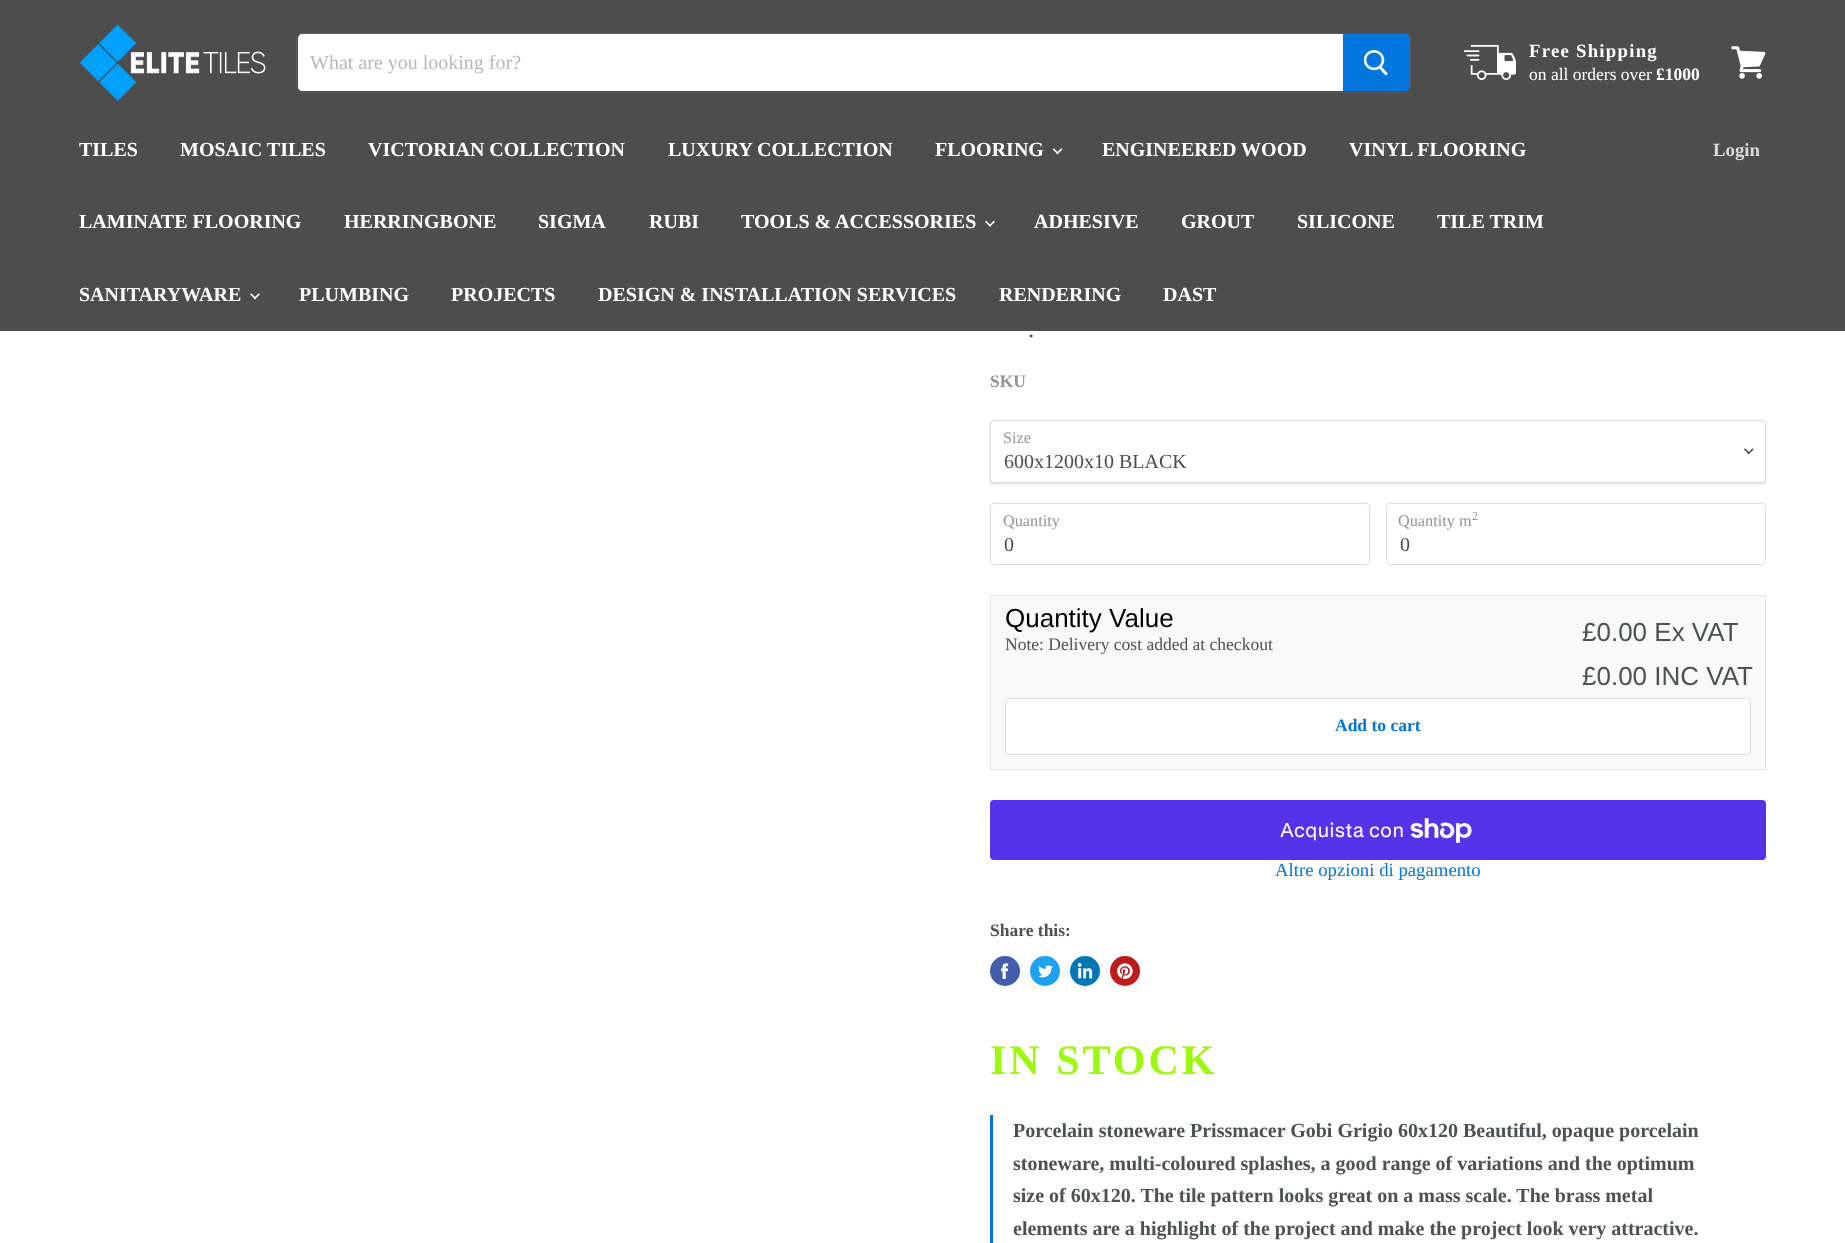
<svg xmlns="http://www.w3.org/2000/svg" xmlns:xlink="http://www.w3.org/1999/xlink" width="1845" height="1243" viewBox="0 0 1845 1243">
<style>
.cls-1{font:20px Liberation Serif;fill:#b8b8b8}
.cls-2{font:bold 18.75px Liberation Serif;letter-spacing:1.25px;fill:#ffffff}
.cls-3{font:17.5px Liberation Serif;fill:#ffffff}
.cls-4{font:bold 17.5px Liberation Serif;fill:#ffffff}
.cls-5{font:bold 20px Liberation Serif;fill:#ffffff}
.cls-6{font:bold 18.75px Liberation Serif;fill:#dbdbdb}
.cls-7{font:25px Liberation Serif;fill:#4c5154}
.cls-8{font:bold 17.5px Liberation Serif;fill:#949494}
.cls-9{font:16.25px Liberation Serif;fill:#949494}
.cls-10{font:20px Liberation Serif;fill:#4d4d4d}
.cls-11{font:12px Liberation Serif;fill:#949494}
.cls-12{font:26px Liberation Sans;fill:#000000}
.cls-13{font:17.5px Liberation Serif;fill:#4c5154}
.cls-14{font:26px Liberation Sans;fill:#4c5154}
.cls-15{font:bold 17.5px Liberation Serif;fill:#0076de}
.cls-16{font:20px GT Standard;fill:#ffffff}
.cls-17{font:18.75px Liberation Serif;fill:#0076de}
.cls-18{font:bold 17.5px Liberation Serif;fill:#4c5154}
.cls-19{font:bold 42px Liberation Serif;letter-spacing:3px;fill:#9df90c}
.cls-20{font:bold 20px Liberation Serif;fill:#4c5154}
</style>
<rect width="100%" height="100%" fill="#ffffff"/>
<rect fill="#4d4d4d" x="0" y="0" width="1845" height="331"/>
<image xlink:href="image0.png" x="79" y="24" width="187" height="77"/>
<rect fill="none" stroke="#808080" stroke-opacity="0.2" x="296.5" y="33.5" width="1114" height="59" rx="4.5"/>
<path fill="#ffffff" d="M302 34H1343V91H302C300 91 298 89 298 87V38C298 36 300 34 302 34Z"/>
<path fill="#0076de" stroke="#0076de" d="M1343.5 34.5H1406C1408 34.5 1409.5 36 1409.5 38V87C1409.5 89 1408 90.5 1406 90.5H1343.5Z"/>
<image xlink:href="image1.png" x="1364" y="50" width="24" height="26"/>
<image xlink:href="image2.png" x="1464" y="45" width="52" height="35"/>
<image xlink:href="image3.png" x="1731" y="46" width="35" height="33"/>
<image xlink:href="image4.png" x="1053" y="148" width="10" height="7"/>
<image xlink:href="image5.png" x="985" y="220" width="10" height="7"/>
<image xlink:href="image6.png" x="250" y="293" width="10" height="7"/>
<rect fill="#000000" fill-opacity="0.15" filter="blur(1px)" x="990" y="421" width="776" height="63" rx="4"/>
<rect fill="#ffffff" stroke="#dddddd" x="990.5" y="420.5" width="775" height="62" rx="3.5"/>
<image xlink:href="image7.png" x="1744" y="448" width="10" height="7"/>
<rect fill="none" stroke="#dddddd" x="990.5" y="503.5" width="379" height="61" rx="3.5"/>
<rect fill="none" stroke="#dddddd" x="1386.5" y="503.5" width="379" height="61" rx="3.5"/>
<rect fill="#f9f9f9" stroke="#e5e5e5" x="990.5" y="595.5" width="775" height="174"/>
<rect fill="#ffffff" stroke="#dddddd" x="1005.5" y="698.5" width="745" height="56" rx="3.5"/>
<rect fill="#5433eb" x="990" y="800" width="776" height="60" rx="4"/>
<image xlink:href="image8.png" x="1410" y="818" width="62" height="25"/>
<circle fill="#425dab" cx="1005" cy="971" r="15"/>
<image xlink:href="image9.png" x="1001" y="963" width="8" height="16"/>
<circle fill="#1da1f2" cx="1045" cy="971" r="15"/>
<image xlink:href="image10.png" x="1038" y="965" width="15" height="13"/>
<circle fill="#0077b5" cx="1085" cy="971" r="15"/>
<image xlink:href="image11.png" x="1077" y="963" width="16" height="16"/>
<circle fill="#bd1c1c" cx="1125" cy="971" r="15"/>
<image xlink:href="image12.png" x="1117" y="963" width="16" height="16"/>
<rect fill="#0076de" x="990" y="1115" width="3" height="128"/>
<text class="cls-1" x="310" y="69">What are you looking for?</text>
<text class="cls-2" x="1529" y="57">Free Shipping</text>
<text class="cls-3" x="1529" y="80">on all orders over</text>
<text class="cls-4" x="1656" y="80">£1000</text>
<text class="cls-5" x="79" y="156">TILES</text>
<text class="cls-5" x="180" y="156">MOSAIC TILES</text>
<text class="cls-5" x="368" y="156">VICTORIAN COLLECTION</text>
<text class="cls-5" x="668" y="156">LUXURY COLLECTION</text>
<text class="cls-5" x="935" y="156">FLOORING</text>
<text class="cls-5" x="1102" y="156">ENGINEERED WOOD</text>
<text class="cls-5" x="1349" y="156">VINYL FLOORING</text>
<text class="cls-5" x="79" y="228">LAMINATE FLOORING</text>
<text class="cls-5" x="344" y="228">HERRINGBONE</text>
<text class="cls-5" x="538" y="228">SIGMA</text>
<text class="cls-5" x="649" y="228">RUBI</text>
<text class="cls-5" x="741" y="228">TOOLS &amp; ACCESSORIES</text>
<text class="cls-5" x="1034" y="228">ADHESIVE</text>
<text class="cls-5" x="1181" y="228">GROUT</text>
<text class="cls-5" x="1297" y="228">SILICONE</text>
<text class="cls-5" x="1437" y="228">TILE TRIM</text>
<text class="cls-5" x="79" y="301">SANITARYWARE</text>
<text class="cls-5" x="299" y="301">PLUMBING</text>
<text class="cls-5" x="451" y="301">PROJECTS</text>
<text class="cls-5" x="598" y="301">DESIGN &amp; INSTALLATION SERVICES</text>
<text class="cls-5" x="999" y="301">RENDERING</text>
<text class="cls-5" x="1163" y="301">DAST</text>
<text class="cls-6" x="1713" y="156">Login</text>
<text class="cls-7" x="1028" y="337">.</text>
<text class="cls-8" x="990" y="387">SKU</text>
<text class="cls-9" x="1003" y="443">Size</text>
<text class="cls-10" x="1004" y="468">600x1200x10 BLACK</text>
<text class="cls-9" x="1003" y="526">Quantity</text>
<text class="cls-10" x="1004" y="551">0</text>
<text class="cls-9" x="1398" y="526">Quantity m</text>
<text class="cls-11" x="1472" y="520">2</text>
<text class="cls-10" x="1400" y="551">0</text>
<text class="cls-12" x="1005" y="627">Quantity Value</text>
<text class="cls-13" x="1005" y="650">Note: Delivery cost added at checkout</text>
<text class="cls-14"><tspan x="1582" y="641">£0.00 Ex VAT</tspan><tspan x="1582" y="685">£0.00 INC VAT</tspan></text>
<text class="cls-15" x="1335" y="731">Add to cart</text>
<text class="cls-16" x="1280" y="837">Acquista con</text>
<text class="cls-17" x="1275" y="876">Altre opzioni di pagamento</text>
<text class="cls-18" x="990" y="936">Share this:</text>
<text class="cls-19" x="990" y="1074">IN STOCK</text>
<text class="cls-20"><tspan x="1013" y="1137">Porcelain stoneware Prissmacer Gobi Grigio 60x120 Beautiful, opaque porcelain</tspan><tspan x="1013" y="1170">stoneware, multi-coloured splashes, a good range of variations and the optimum</tspan><tspan x="1013" y="1202">size of 60x120. The tile pattern looks great on a mass scale. The brass metal</tspan><tspan x="1013" y="1235">elements are a highlight of the project and make the project look very attractive.</tspan></text>
</svg>
